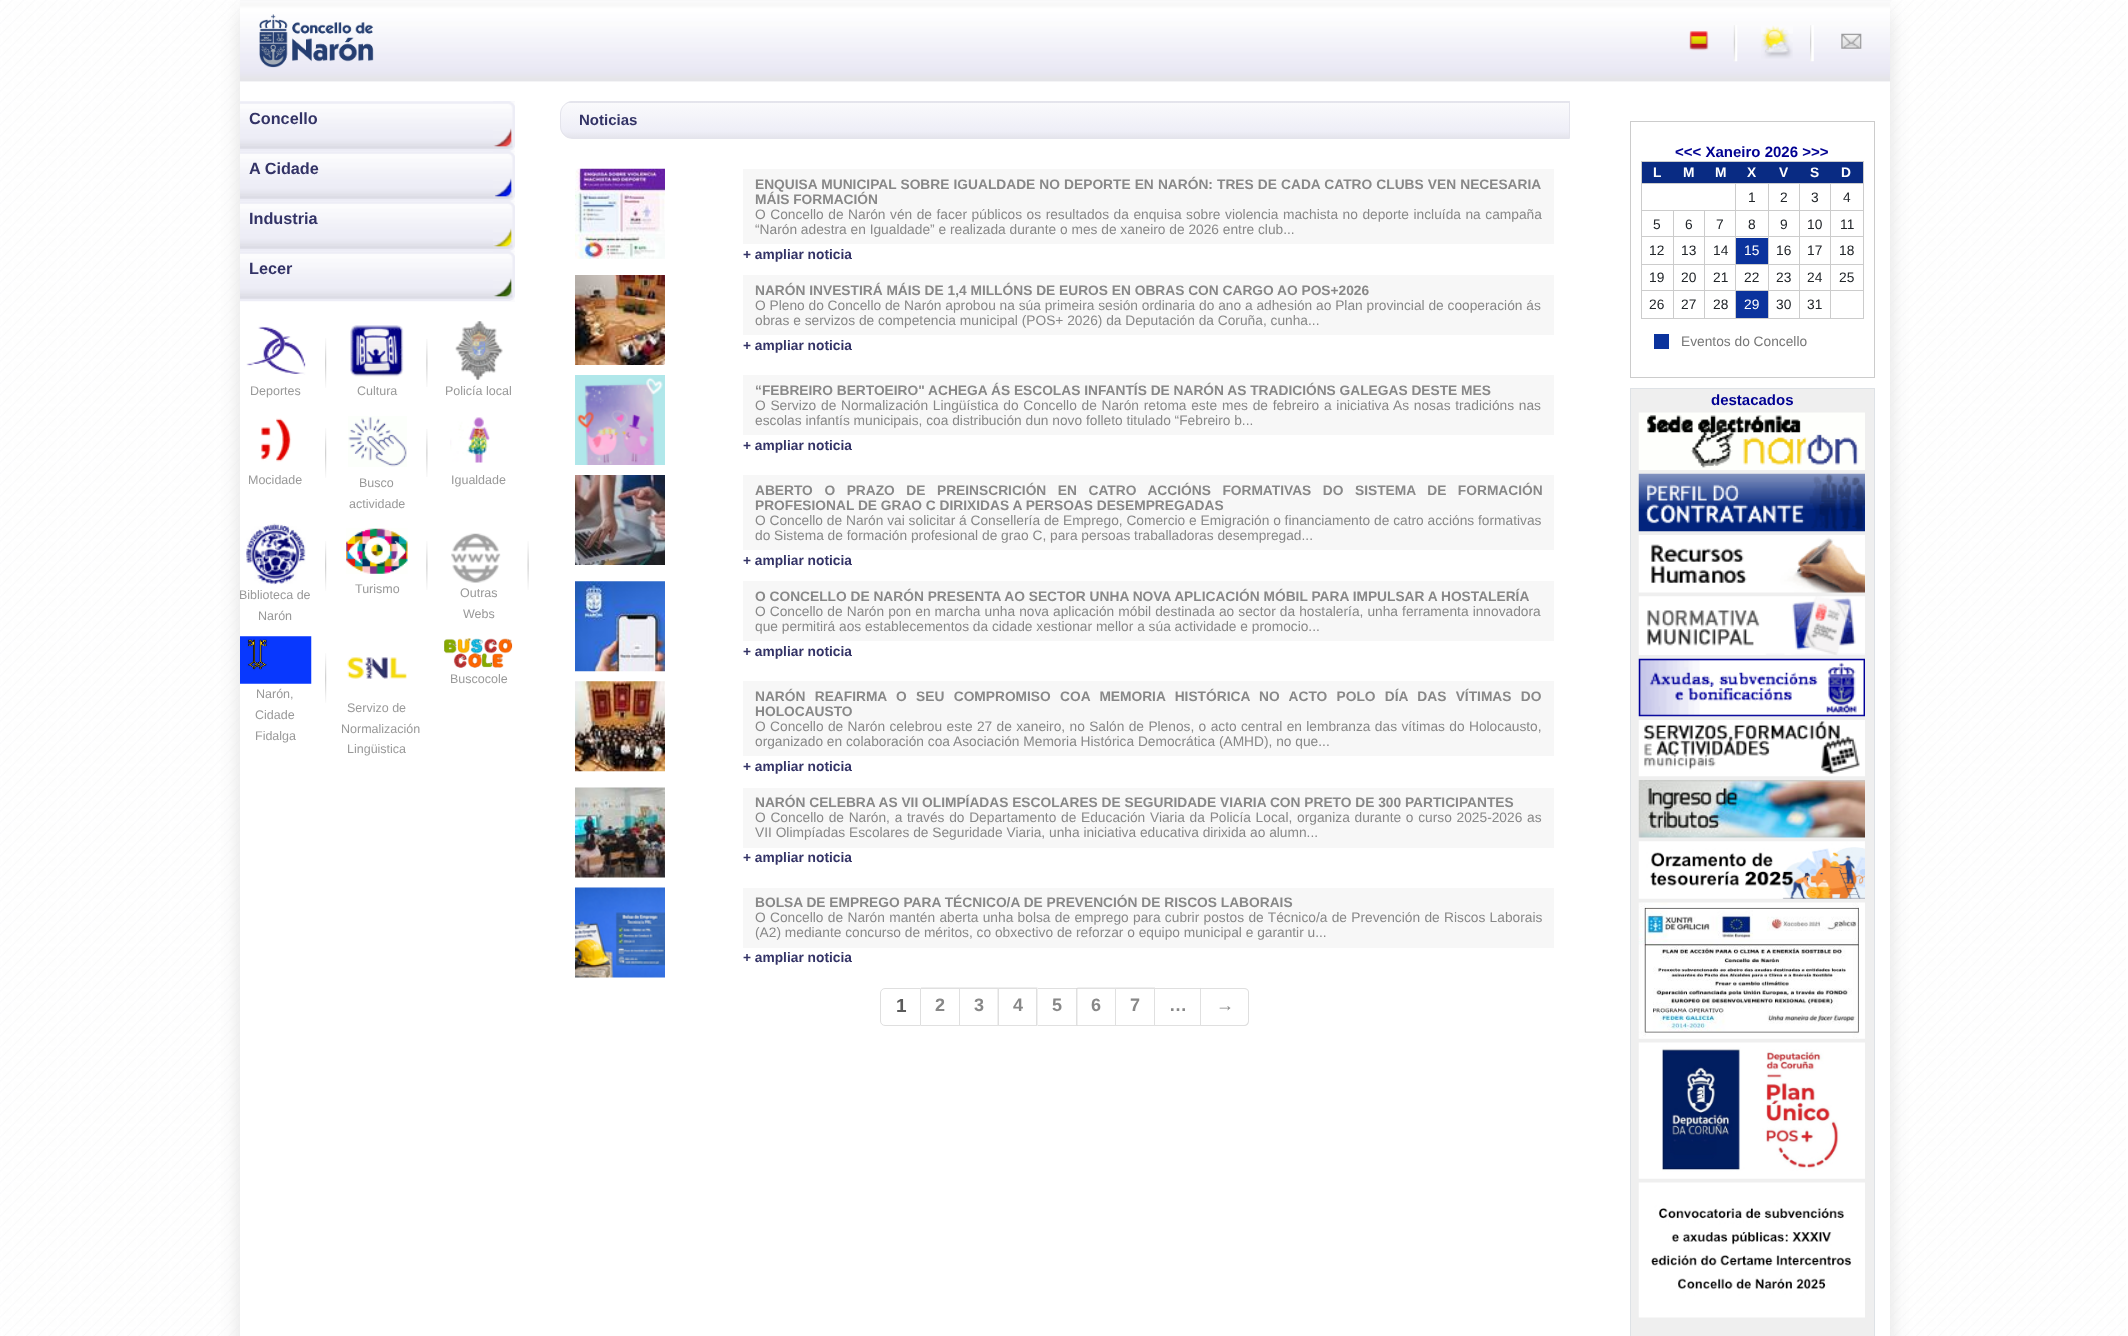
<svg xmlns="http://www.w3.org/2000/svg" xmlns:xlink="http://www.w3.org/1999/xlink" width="2128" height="1336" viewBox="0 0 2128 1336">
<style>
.cls-1{font:bold 16.25px Liberation Sans;fill:#333366}
.cls-2{font:12.5px Liberation Sans;fill:#999999}
.cls-3{font:bold 15px Liberation Sans;fill:#333366}
.cls-4{font:bold 13.75px Liberation Sans;fill:#888888}
.cls-5{font:13.75px Liberation Sans;fill:#888888}
.cls-6{font:bold 13.75px Liberation Sans;fill:#333366}
.cls-7{font:bold 19px Liberation Sans;fill:#5b5b5b}
.cls-8{font:bold 18px Liberation Sans;fill:#888888}
.cls-9{font:bold 15px Liberation Sans;fill:#000092}
.cls-10{font:bold 13.75px Liberation Sans;fill:#ffffff}
.cls-11{font:13.75px Liberation Sans;fill:#212529}
.cls-12{font:13.75px Liberation Sans;fill:#ffffff}
.cls-13{font:13.75px Liberation Sans;fill:#777777}
</style>
<defs>
<clipPath id="clip1"><path d="M573 101H1570V139H573C566 139 560 133 560 126V114C560 107 566 101 573 101Z"/></clipPath>
<linearGradient id="g1" gradientUnits="userSpaceOnUse" x1="1065" y1="103" x2="1065" y2="68"><stop offset="0" stop-color="#e4e4ec"/><stop offset="0.19" stop-color="#eeeef7"/><stop offset="1" stop-color="#fafafc"/></linearGradient>
<linearGradient id="g2" gradientUnits="userSpaceOnUse" x1="1065" y1="138" x2="1065" y2="103"><stop offset="0" stop-color="#e4e4ec"/><stop offset="0.19" stop-color="#eeeef7"/><stop offset="1" stop-color="#fafafc"/></linearGradient>
</defs>
<rect width="100%" height="100%" fill="#ffffff"/>
<image xlink:href="image0.png" x="0" y="0" width="2126" height="1336"/>
<rect fill="#dfdfdf" filter="blur(9.5px)" x="240" y="0" width="1650" height="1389" rx="30"/>
<rect fill="#ffffff" x="240" y="82" width="1650" height="1254"/>
<image xlink:href="image1.png" x="240" y="0" width="1650" height="82"/>
<image xlink:href="image2.png" x="259" y="14" width="115" height="54"/>
<image xlink:href="image3.png" x="1733" y="25" width="5" height="37"/>
<image xlink:href="image4.png" x="1689" y="31" width="20" height="20"/>
<image xlink:href="image5.png" x="1810" y="25" width="4" height="37"/>
<image xlink:href="image6.png" x="1761" y="25" width="32" height="34"/>
<image xlink:href="image7.png" x="1841" y="33" width="21" height="16"/>
<image xlink:href="image8.png" x="240" y="101" width="275" height="51"/>
<image xlink:href="image9.png" x="493" y="101" width="22" height="50"/>
<image xlink:href="image10.png" x="240" y="151" width="275" height="51"/>
<image xlink:href="image11.png" x="493" y="151" width="22" height="50"/>
<image xlink:href="image10.png" x="240" y="201" width="275" height="51"/>
<image xlink:href="image12.png" x="493" y="201" width="22" height="50"/>
<image xlink:href="image10.png" x="240" y="251" width="275" height="51"/>
<image xlink:href="image13.png" x="493" y="251" width="22" height="50"/>
<image xlink:href="image14.png" x="325" y="338" width="2" height="50"/>
<image xlink:href="image15.png" x="246" y="326" width="60" height="49"/>
<image xlink:href="image16.png" x="426" y="339" width="2" height="48"/>
<image xlink:href="image17.png" x="350" y="325" width="54" height="52"/>
<image xlink:href="image18.png" x="455" y="321" width="48" height="59"/>
<image xlink:href="image14.png" x="325" y="428" width="2" height="50"/>
<image xlink:href="image19.png" x="261" y="418" width="31" height="44"/>
<image xlink:href="image16.png" x="426" y="429" width="2" height="48"/>
<image xlink:href="image20.png" x="348" y="416" width="59" height="51"/>
<image xlink:href="image21.png" x="450" y="417" width="40" height="46"/>
<image xlink:href="image22.png" x="325" y="541" width="2" height="50"/>
<image xlink:href="image23.png" x="246" y="523" width="60" height="62"/>
<image xlink:href="image24.png" x="426" y="541" width="2" height="49"/>
<image xlink:href="image25.png" x="346" y="528" width="62" height="46"/>
<image xlink:href="image26.png" x="527" y="541" width="2" height="49"/>
<image xlink:href="image27.png" x="451" y="533" width="50" height="50"/>
<image xlink:href="image28.png" x="444" y="638" width="69" height="30"/>
<image xlink:href="image14.png" x="325" y="653" width="2" height="50"/>
<image xlink:href="image29.png" x="240" y="636" width="72" height="48"/>
<image xlink:href="image30.png" x="347" y="657" width="60" height="22"/>
<g clip-path="url(#clip1)">
<rect fill="url(#g1)" x="560" y="101" width="1010" height="2"/>
<rect fill="url(#g2)" x="560" y="103" width="1009" height="35"/>
</g>
<path fill="none" stroke="#e4e4ec" d="M573 101.5H1569.5V138.5H573C566 138.5 560.5 133 560.5 126V114C560.5 107 566 101.5 573 101.5Z"/>
<image xlink:href="image31.png" x="575" y="168" width="90" height="91"/>
<rect fill="#f7f7f7" x="743" y="169" width="811" height="75"/>
<image xlink:href="image32.png" x="575" y="275" width="90" height="90"/>
<rect fill="#f7f7f7" x="743" y="275" width="811" height="60"/>
<image xlink:href="image33.png" x="575" y="375" width="90" height="90"/>
<rect fill="#f7f7f7" x="743" y="375" width="811" height="60"/>
<image xlink:href="image34.png" x="575" y="475" width="90" height="90"/>
<rect fill="#f7f7f7" x="743" y="475" width="811" height="75"/>
<image xlink:href="image35.png" x="575" y="581" width="90" height="91"/>
<rect fill="#f7f7f7" x="743" y="581" width="811" height="60"/>
<image xlink:href="image36.png" x="575" y="681" width="90" height="91"/>
<rect fill="#f7f7f7" x="743" y="681" width="811" height="75"/>
<image xlink:href="image37.png" x="575" y="787" width="90" height="91"/>
<rect fill="#f7f7f7" x="743" y="788" width="811" height="60"/>
<image xlink:href="image38.png" x="575" y="887" width="90" height="91"/>
<rect fill="#f7f7f7" x="743" y="888" width="811" height="60"/>
<path fill="none" stroke="#dfdfdf" d="M885 988.5H920.5V1025.5H885C882.5 1025.5 880.5 1023.5 880.5 1021V993C880.5 990.5 882.5 988.5 885 988.5Z"/>
<path fill="#dfdfdf" d="M921 987.5H960L959 989H921Z"/>
<path fill="#000000" fill-opacity="0.12" d="M960 987.5V1026L959 1025V989Z"/>
<path fill="#000000" fill-opacity="0.12" d="M960 1026H921V1025H959Z"/>
<path fill="#dfdfdf" d="M960 987.5H999L997.5 989H960Z"/>
<path fill="#000000" fill-opacity="0.12" d="M999 987.5V1026L997.5 1025V989Z"/>
<path fill="#000000" fill-opacity="0.12" d="M999 1026H960V1025H997.5Z"/>
<path fill="#dfdfdf" d="M999 987.5H1037.5L1036 989H999Z"/>
<path fill="#000000" fill-opacity="0.12" d="M1037.5 987.5V1026L1036 1025V989Z"/>
<path fill="#000000" fill-opacity="0.12" d="M1037.5 1026H999V1025H1036Z"/>
<path fill="#dfdfdf" d="M1038 988H1078L1076 989H1038Z"/>
<path fill="#000000" fill-opacity="0.12" d="M1077.5 987.5V1026L1076 1025V989Z"/>
<path fill="#000000" fill-opacity="0.12" d="M1078 1026H1038V1025H1076Z"/>
<path fill="#000000" fill-opacity="0.12" d="M1077.5 987.5H1116L1115 989H1077.5Z"/>
<path fill="#000000" fill-opacity="0.12" d="M1116 987.5V1026L1115 1025V989Z"/>
<path fill="#000000" fill-opacity="0.12" d="M1116 1026H1077.5V1025H1115Z"/>
<path fill="#dfdfdf" d="M1116 987.5H1155L1154 989H1116Z"/>
<path fill="#000000" fill-opacity="0.12" d="M1155 987.5V1026L1154 1025V989Z"/>
<path fill="#000000" fill-opacity="0.12" d="M1155 1026H1116V1025H1154Z"/>
<path fill="#dfdfdf" d="M1155 988H1201L1200 989H1155Z"/>
<path fill="#000000" fill-opacity="0.12" d="M1201 987.5V1026L1200 1025V989Z"/>
<path fill="#000000" fill-opacity="0.12" d="M1201 1026H1155V1025H1200Z"/>
<path fill="#dfdfdf" fill-rule="evenodd" d="M1201 988H1244C1247 988 1249 990 1249 992V1021C1249 1024 1247 1026 1244 1026H1201ZM1201 989H1244C1246 989 1248 990 1248 992V1021C1248 1023 1246 1025 1244 1025H1201Z"/>
<rect fill="none" stroke="#cccccc" x="1630.5" y="121.5" width="244" height="256"/>
<rect fill="#cccccc" x="1641" y="161" width="223" height="1"/>
<rect fill="#cccccc" x="1863" y="161" width="1" height="158"/>
<rect fill="#cccccc" x="1641" y="318" width="223" height="1"/>
<rect fill="#cccccc" x="1641" y="161" width="1" height="158"/>
<rect fill="#092b83" x="1642" y="162" width="221" height="21"/>
<rect fill="#cccccc" x="1830" y="183" width="34" height="1"/>
<rect fill="#cccccc" x="1830" y="210" width="34" height="1"/>
<rect fill="#cccccc" x="1830" y="236" width="34" height="1"/>
<rect fill="#cccccc" x="1830" y="264" width="34" height="1"/>
<rect fill="#cccccc" x="1830" y="290" width="34" height="1"/>
<rect fill="#cccccc" x="1830" y="290" width="1" height="29"/>
<rect fill="#cccccc" x="1799" y="290" width="32" height="1"/>
<rect fill="#cccccc" x="1830" y="264" width="1" height="27"/>
<rect fill="#cccccc" x="1799" y="264" width="32" height="1"/>
<rect fill="#cccccc" x="1830" y="236" width="1" height="29"/>
<rect fill="#cccccc" x="1799" y="236" width="32" height="1"/>
<rect fill="#cccccc" x="1830" y="210" width="1" height="28"/>
<rect fill="#cccccc" x="1799" y="210" width="32" height="1"/>
<rect fill="#cccccc" x="1830" y="183" width="1" height="28"/>
<rect fill="#cccccc" x="1799" y="183" width="32" height="1"/>
<rect fill="#cccccc" x="1799" y="290" width="1" height="29"/>
<rect fill="#cccccc" x="1768" y="290" width="32" height="1"/>
<rect fill="#cccccc" x="1799" y="264" width="1" height="27"/>
<rect fill="#cccccc" x="1768" y="264" width="32" height="1"/>
<rect fill="#cccccc" x="1799" y="236" width="1" height="29"/>
<rect fill="#cccccc" x="1768" y="236" width="32" height="1"/>
<rect fill="#cccccc" x="1799" y="210" width="1" height="28"/>
<rect fill="#cccccc" x="1768" y="210" width="32" height="1"/>
<rect fill="#cccccc" x="1799" y="183" width="1" height="28"/>
<rect fill="#cccccc" x="1768" y="183" width="32" height="1"/>
<rect fill="#cccccc" x="1768" y="290" width="1" height="29"/>
<rect fill="#cccccc" x="1735" y="290" width="34" height="1"/>
<rect fill="#cccccc" x="1768" y="264" width="1" height="27"/>
<rect fill="#cccccc" x="1735" y="264" width="34" height="1"/>
<rect fill="#cccccc" x="1768" y="236" width="1" height="29"/>
<rect fill="#cccccc" x="1735" y="236" width="34" height="1"/>
<rect fill="#cccccc" x="1768" y="210" width="1" height="28"/>
<rect fill="#cccccc" x="1735" y="210" width="34" height="1"/>
<rect fill="#cccccc" x="1768" y="183" width="1" height="28"/>
<rect fill="#cccccc" x="1735" y="183" width="34" height="1"/>
<rect fill="#cccccc" x="1735" y="290" width="1" height="29"/>
<rect fill="#cccccc" x="1704" y="290" width="32" height="1"/>
<rect fill="#cccccc" x="1735" y="264" width="1" height="27"/>
<rect fill="#cccccc" x="1704" y="264" width="32" height="1"/>
<rect fill="#cccccc" x="1735" y="236" width="1" height="29"/>
<rect fill="#cccccc" x="1704" y="236" width="32" height="1"/>
<rect fill="#cccccc" x="1735" y="210" width="1" height="28"/>
<rect fill="#cccccc" x="1704" y="210" width="32" height="1"/>
<rect fill="#cccccc" x="1735" y="183" width="1" height="28"/>
<rect fill="#cccccc" x="1641" y="183" width="95" height="1"/>
<rect fill="#cccccc" x="1704" y="290" width="1" height="29"/>
<rect fill="#cccccc" x="1673" y="290" width="32" height="1"/>
<rect fill="#cccccc" x="1704" y="264" width="1" height="27"/>
<rect fill="#cccccc" x="1673" y="264" width="32" height="1"/>
<rect fill="#cccccc" x="1704" y="236" width="1" height="29"/>
<rect fill="#cccccc" x="1673" y="236" width="32" height="1"/>
<rect fill="#cccccc" x="1704" y="210" width="1" height="28"/>
<rect fill="#cccccc" x="1673" y="210" width="32" height="1"/>
<rect fill="#cccccc" x="1673" y="290" width="1" height="29"/>
<rect fill="#cccccc" x="1641" y="290" width="33" height="1"/>
<rect fill="#cccccc" x="1673" y="264" width="1" height="27"/>
<rect fill="#cccccc" x="1641" y="264" width="33" height="1"/>
<rect fill="#cccccc" x="1673" y="236" width="1" height="29"/>
<rect fill="#cccccc" x="1641" y="236" width="33" height="1"/>
<rect fill="#cccccc" x="1673" y="210" width="1" height="28"/>
<rect fill="#cccccc" x="1641" y="210" width="33" height="1"/>
<rect fill="#0b339d" x="1736" y="238" width="32" height="26"/>
<rect fill="#0b339d" x="1736" y="291" width="32" height="27"/>
<rect fill="#0b339d" x="1654" y="334" width="15" height="15"/>
<rect fill="#efefef" stroke="#dee2e6" x="1630.5" y="388.5" width="244" height="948"/>
<image xlink:href="image39.png" x="1638" y="412" width="227" height="58"/>
<image xlink:href="image40.png" x="1638" y="473" width="227" height="59"/>
<image xlink:href="image41.png" x="1638" y="535" width="227" height="58"/>
<image xlink:href="image42.png" x="1638" y="596" width="227" height="59"/>
<image xlink:href="image43.png" x="1638" y="658" width="227" height="59"/>
<image xlink:href="image44.png" x="1638" y="720" width="227" height="57"/>
<image xlink:href="image45.png" x="1638" y="780" width="227" height="58"/>
<image xlink:href="image46.png" x="1638" y="841" width="227" height="58"/>
<image xlink:href="image47.png" x="1638" y="902" width="227" height="137"/>
<image xlink:href="image48.png" x="1638" y="1042" width="227" height="137"/>
<image xlink:href="image49.png" x="1638" y="1182" width="227" height="136"/>
<text class="cls-1" x="249" y="124">Concello</text>
<text class="cls-1" x="249" y="174">A Cidade</text>
<text class="cls-1" x="249" y="224">Industria</text>
<text class="cls-1" x="249" y="274">Lecer</text>
<text class="cls-2" x="250" y="395">Deportes</text>
<text class="cls-2" x="357" y="395">Cultura</text>
<text class="cls-2" x="445" y="395">Policía local</text>
<text class="cls-2" x="248" y="484">Mocidade</text>
<text class="cls-2" x="359" y="487">Busco</text>
<text class="cls-2" x="349" y="508">actividade</text>
<text class="cls-2" x="451" y="484">Igualdade</text>
<text class="cls-2" x="239" y="599">Biblioteca de</text>
<text class="cls-2" x="258" y="620">Narón</text>
<text class="cls-2" x="355" y="593">Turismo</text>
<text class="cls-2" x="460" y="597">Outras</text>
<text class="cls-2" x="463" y="618">Webs</text>
<text class="cls-2" x="450" y="683">Buscocole</text>
<text class="cls-2" x="256" y="698">Narón,</text>
<text class="cls-2"><tspan x="255" y="719">Cidade</tspan><tspan x="255" y="740">Fidalga</tspan></text>
<text class="cls-2" x="347" y="712">Servizo de</text>
<text class="cls-2" x="341" y="733">Normalización</text>
<text class="cls-2" x="347" y="753">Lingüistica</text>
<text class="cls-3" x="579" y="125">Noticias</text>
<text class="cls-4"><tspan x="755" y="189" word-spacing="0.3">ENQUISA MUNICIPAL SOBRE IGUALDADE NO DEPORTE EN NARÓN: TRES DE CADA CATRO CLUBS VEN NECESARIA</tspan><tspan x="755" y="204">MÁIS FORMACIÓN</tspan></text>
<text class="cls-5"><tspan x="755" y="219" word-spacing="0.7">O Concello de Narón vén de facer públicos os resultados da enquisa sobre violencia machista no deporte incluída na campaña</tspan><tspan x="755" y="234">“Narón adestra en Igualdade” e realizada durante o mes de xaneiro de 2026 entre club...</tspan></text>
<text class="cls-6" x="743" y="259">+ ampliar noticia</text>
<text class="cls-4" x="755" y="295">NARÓN INVESTIRÁ MÁIS DE 1,4 MILLÓNS DE EUROS EN OBRAS CON CARGO AO POS+2026</text>
<text class="cls-5"><tspan x="755" y="310">O Pleno do Concello de Narón aprobou na súa primeira sesión ordinaria do ano a adhesión ao Plan provincial de cooperación ás</tspan><tspan x="755" y="325">obras e servizos de competencia municipal (POS+ 2026) da Deputación da Coruña, cunha...</tspan></text>
<text class="cls-6" x="743" y="350">+ ampliar noticia</text>
<text class="cls-4" x="755" y="395">“FEBREIRO BERTOEIRO" ACHEGA ÁS ESCOLAS INFANTÍS DE NARÓN AS TRADICIÓNS GALEGAS DESTE MES</text>
<text class="cls-5"><tspan x="755" y="410" word-spacing="0.9">O Servizo de Normalización Lingüística do Concello de Narón retoma este mes de febreiro a iniciativa As nosas tradicións nas</tspan><tspan x="755" y="425">escolas infantís municipais, coa distribución dun novo folleto titulado “Febreiro b...</tspan></text>
<text class="cls-6" x="743" y="450">+ ampliar noticia</text>
<text class="cls-4"><tspan x="755" y="495" word-spacing="7.75">ABERTO O PRAZO DE PREINSCRICIÓN EN CATRO ACCIÓNS FORMATIVAS DO SISTEMA DE FORMACIÓN</tspan><tspan x="755" y="510">PROFESIONAL DE GRAO C DIRIXIDAS A PERSOAS DESEMPREGADAS</tspan></text>
<text class="cls-5"><tspan x="755" y="525">O Concello de Narón vai solicitar á Consellería de Emprego, Comercio e Emigración o financiamento de catro accións formativas</tspan><tspan x="755" y="540">do Sistema de formación profesional de grao C, para persoas traballadoras desempregad...</tspan></text>
<text class="cls-6" x="743" y="565">+ ampliar noticia</text>
<text class="cls-4" x="755" y="601">O CONCELLO DE NARÓN PRESENTA AO SECTOR UNHA NOVA APLICACIÓN MÓBIL PARA IMPULSAR A HOSTALERÍA</text>
<text class="cls-5"><tspan x="755" y="616" word-spacing="0.25">O Concello de Narón pon en marcha unha nova aplicación móbil destinada ao sector da hostalería, unha ferramenta innovadora</tspan><tspan x="755" y="631">que permitirá aos establecementos da cidade xestionar mellor a súa actividade e promocio...</tspan></text>
<text class="cls-6" x="743" y="656">+ ampliar noticia</text>
<text class="cls-4"><tspan x="755" y="701" word-spacing="5.5">NARÓN REAFIRMA O SEU COMPROMISO COA MEMORIA HISTÓRICA NO ACTO POLO DÍA DAS VÍTIMAS DO</tspan><tspan x="755" y="716">HOLOCAUSTO</tspan></text>
<text class="cls-5"><tspan x="755" y="731" word-spacing="0.55">O Concello de Narón celebrou este 27 de xaneiro, no Salón de Plenos, o acto central en lembranza das vítimas do Holocausto,</tspan><tspan x="755" y="746">organizado en colaboración coa Asociación Memoria Histórica Democrática (AMHD), no que...</tspan></text>
<text class="cls-6" x="743" y="771">+ ampliar noticia</text>
<text class="cls-4" x="755" y="807">NARÓN CELEBRA AS VII OLIMPÍADAS ESCOLARES DE SEGURIDADE VIARIA CON PRETO DE 300 PARTICIPANTES</text>
<text class="cls-5"><tspan x="755" y="822" word-spacing="0.9">O Concello de Narón, a través do Departamento de Educación Viaria da Policía Local, organiza durante o curso 2025-2026 as</tspan><tspan x="755" y="837">VII Olimpíadas Escolares de Seguridade Viaria, unha iniciativa educativa dirixida ao alumn...</tspan></text>
<text class="cls-6" x="743" y="862">+ ampliar noticia</text>
<text class="cls-4" x="755" y="907">BOLSA DE EMPREGO PARA TÉCNICO/A DE PREVENCIÓN DE RISCOS LABORAIS</text>
<text class="cls-5"><tspan x="755" y="922" word-spacing="0.5">O Concello de Narón mantén aberta unha bolsa de emprego para cubrir postos de Técnico/a de Prevención de Riscos Laborais</tspan><tspan x="755" y="937">(A2) mediante concurso de méritos, co obxectivo de reforzar o equipo municipal e garantir u...</tspan></text>
<text class="cls-6" x="743" y="962">+ ampliar noticia</text>
<text class="cls-7" x="896" y="1012">1</text>
<text class="cls-8" x="935" y="1011">2</text>
<text class="cls-8" x="974" y="1011">3</text>
<text class="cls-8" x="1013" y="1011">4</text>
<text class="cls-8" x="1052" y="1011">5</text>
<text class="cls-8" x="1091" y="1011">6</text>
<text class="cls-8" x="1130" y="1011">7</text>
<text class="cls-8" x="1169" y="1011">…</text>
<text class="cls-8" x="1216" y="1011">→</text>
<text class="cls-9" x="1675" y="157">&lt;&lt;&lt; Xaneiro 2026 &gt;&gt;&gt;</text>
<text class="cls-10" x="1653" y="177">L</text>
<text class="cls-10" x="1683" y="177">M</text>
<text class="cls-10" x="1715" y="177">M</text>
<text class="cls-10" x="1747" y="177">X</text>
<text class="cls-10" x="1779" y="177">V</text>
<text class="cls-10" x="1810" y="177">S</text>
<text class="cls-10" x="1841" y="177">D</text>
<text class="cls-11" x="1748" y="202">1</text>
<text class="cls-11" x="1780" y="202">2</text>
<text class="cls-11" x="1811" y="202">3</text>
<text class="cls-11" x="1843" y="202">4</text>
<text class="cls-11" x="1653" y="229">5</text>
<text class="cls-11" x="1685" y="229">6</text>
<text class="cls-11" x="1716" y="229">7</text>
<text class="cls-11" x="1748" y="229">8</text>
<text class="cls-11" x="1780" y="229">9</text>
<text class="cls-11" x="1807" y="229">10</text>
<text class="cls-11" x="1840" y="229">11</text>
<text class="cls-11" x="1649" y="255">12</text>
<text class="cls-11" x="1681" y="255">13</text>
<text class="cls-11" x="1713" y="255">14</text>
<text class="cls-12" x="1744" y="255">15</text>
<text class="cls-11" x="1776" y="255">16</text>
<text class="cls-11" x="1807" y="255">17</text>
<text class="cls-11" x="1839" y="255">18</text>
<text class="cls-11" x="1649" y="282">19</text>
<text class="cls-11" x="1681" y="282">20</text>
<text class="cls-11" x="1713" y="282">21</text>
<text class="cls-11" x="1744" y="282">22</text>
<text class="cls-11" x="1776" y="282">23</text>
<text class="cls-11" x="1807" y="282">24</text>
<text class="cls-11" x="1839" y="282">25</text>
<text class="cls-11" x="1649" y="309">26</text>
<text class="cls-11" x="1681" y="309">27</text>
<text class="cls-11" x="1713" y="309">28</text>
<text class="cls-12" x="1744" y="309">29</text>
<text class="cls-11" x="1776" y="309">30</text>
<text class="cls-11" x="1807" y="309">31</text>
<text class="cls-13" x="1681" y="346">Eventos do Concello</text>
<text class="cls-9" x="1711" y="405">destacados</text>
</svg>
